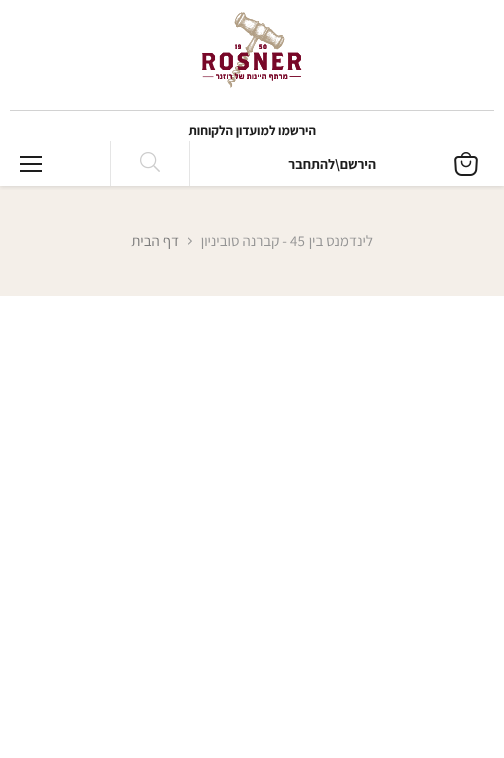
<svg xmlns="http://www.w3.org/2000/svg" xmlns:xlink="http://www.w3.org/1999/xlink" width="504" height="758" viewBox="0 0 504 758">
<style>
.cls-1{font:bold 13.1px Assistant;direction:rtl;fill:#1d1d1d}
.cls-2{font:bold 14px Assistant;direction:rtl;fill:#1d1d1d}
.cls-3{font:bold 14px Assistant;fill:#1d1d1d}
.cls-4{font:15px Assistant;direction:rtl;fill:#949494}
.cls-5{font:15px Assistant;fill:#949494}
.cls-6{font:15px Assistant;direction:rtl;fill:#7b7b7b}
</style>
<defs>
<clipPath id="clip1"><rect x="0" y="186" width="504" height="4"/></clipPath>
</defs>
<rect width="100%" height="100%" fill="#ffffff"/>
<rect fill="#f4efe9" x="0" y="186" width="504" height="110"/>
<g clip-path="url(#clip1)">
<rect fill="#808080" fill-opacity="0.25" filter="blur(2px)" x="0" y="1" width="504" height="186"/>
</g>
<image xlink:href="image0.png" x="202" y="12" width="100" height="76"/>
<rect fill="#d2d2d2" x="10" y="110" width="484" height="1"/>
<image xlink:href="image1.png" x="454" y="152" width="24" height="24"/>
<rect fill="#e5e5e5" x="189" y="141" width="1" height="45"/>
<rect fill="#e5e5e5" x="110" y="141" width="1" height="45"/>
<image xlink:href="image2.png" x="140" y="152" width="20" height="20"/>
<rect fill="#1d1d1d" x="20" y="156" width="22" height="2"/>
<rect fill="#1d1d1d" x="20" y="163" width="22" height="2"/>
<rect fill="#1d1d1d" x="20" y="170" width="22" height="2"/>
<image xlink:href="image3.png" x="188" y="237" width="4" height="8"/>
<text class="cls-1" x="316" y="135">הירשמו למועדון הלקוחות</text>
<text class="cls-2" x="376" y="169">הירשם</text>
<text class="cls-3" x="335" y="169">\</text>
<text class="cls-2" x="335" y="169">להתחבר</text>
<text class="cls-4" x="373" y="246">לינדמנס בין</text>
<text class="cls-5" x="290" y="246">45</text>
<text class="cls-4" x="287" y="246">- קברנה סוביניון</text>
<text class="cls-6" x="179" y="246">דף הבית</text>
</svg>
